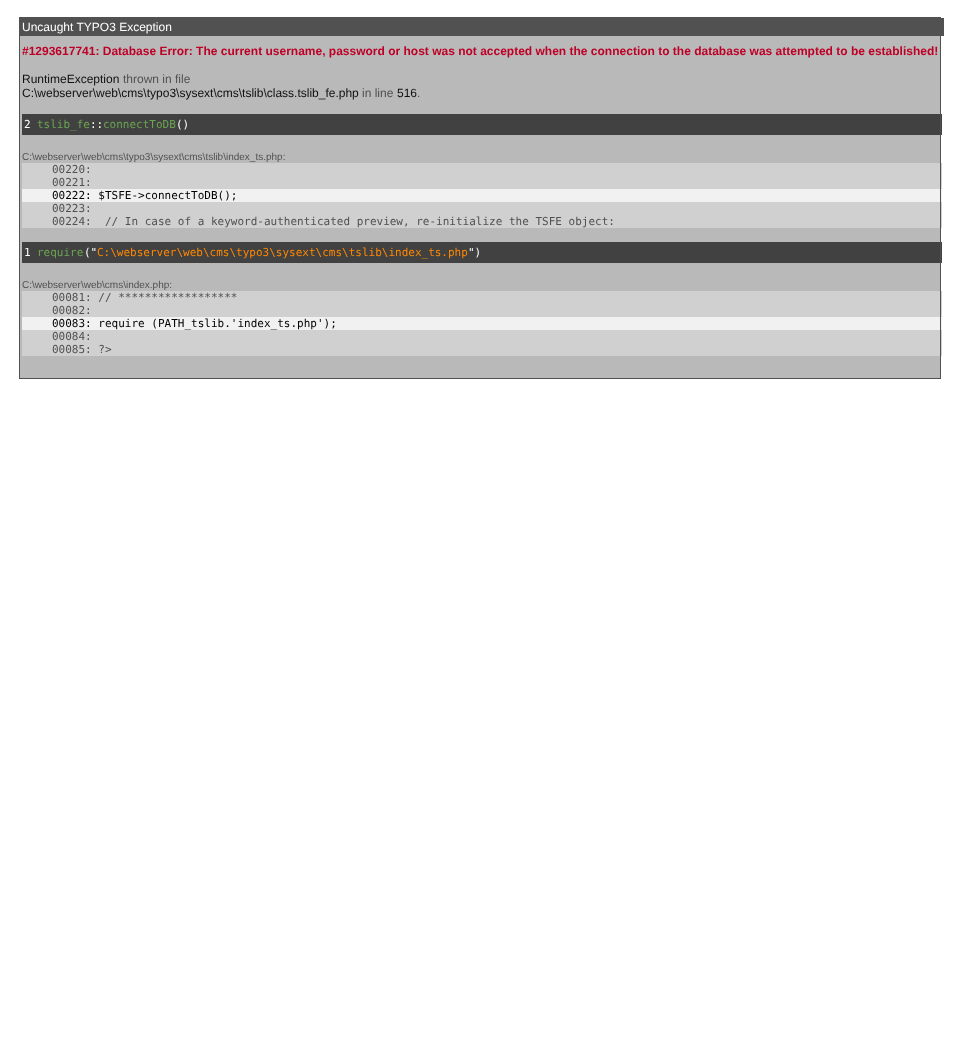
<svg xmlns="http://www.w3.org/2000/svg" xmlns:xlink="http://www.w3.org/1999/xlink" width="960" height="1040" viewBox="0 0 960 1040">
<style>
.cls-1{font:12px Liberation Sans;fill:#ffffff}
.cls-2{font:bold 12px Liberation Sans;fill:#be0027}
.cls-3{font:12px Liberation Sans;fill:#101010}
.cls-4{font:12px Liberation Sans;fill:#515151}
.cls-5{font:11px DejaVu Sans Mono;fill:#ffffff}
.cls-6{font:11px DejaVu Sans Mono;fill:#69a550}
.cls-7{font:10px Liberation Sans;fill:#515151}
.cls-8{font:11px DejaVu Sans Mono;fill:#515151}
.cls-9{font:11px DejaVu Sans Mono;fill:#000000}
.cls-10{font:11px DejaVu Sans Mono;fill:#ff8700}
</style>
<rect width="100%" height="100%" fill="#ffffff"/>
<rect fill="#b9b9b9" x="20" y="36" width="920" height="342"/>
<rect fill="#515151" x="20" y="18" width="924" height="18"/>
<rect fill="#414141" x="22" y="114" width="920" height="21"/>
<rect fill="#d0d0d0" x="22" y="163" width="920" height="26"/>
<rect fill="#f1f1f1" x="22" y="189" width="920" height="13"/>
<rect fill="#d0d0d0" x="22" y="202" width="920" height="26"/>
<rect fill="#414141" x="22" y="242" width="920" height="21"/>
<rect fill="#d0d0d0" x="22" y="291" width="920" height="26"/>
<rect fill="#f1f1f1" x="22" y="317" width="920" height="13"/>
<rect fill="#d0d0d0" x="22" y="330" width="920" height="26"/>
<rect fill="none" stroke="#515151" x="19.5" y="17.5" width="921" height="361"/>
<text class="cls-1" x="22" y="31">Uncaught TYPO3 Exception</text>
<text class="cls-2" x="22" y="55">#1293617741: Database Error: The current username, password or host was not accepted when the connection to the database was attempted to be established!</text>
<text class="cls-3" x="22" y="83">RuntimeException</text>
<text class="cls-4" x="123" y="83">thrown in file</text>
<text class="cls-3" x="22" y="97">C:\webserver\web\cms\typo3\sysext\cms\tslib\class.tslib_fe.php</text>
<text class="cls-4" x="362" y="97">in line</text>
<text class="cls-3" x="397" y="97">516</text>
<text class="cls-4" x="417" y="97">.</text>
<text class="cls-5" x="24" y="128">2</text>
<text class="cls-6" x="37" y="128">tslib_fe</text>
<text class="cls-5" x="90" y="128">::</text>
<text class="cls-6" x="103" y="128">connectToDB</text>
<text class="cls-5" x="176" y="128">()</text>
<text class="cls-7" x="22" y="160">C:\webserver\web\cms\typo3\sysext\cms\tslib\index_ts.php:</text>
<text class="cls-8"><tspan x="52" y="173">00220:</tspan><tspan x="52" y="186">00221:</tspan></text>
<text class="cls-9" x="52" y="199">00222: $TSFE-&gt;connectToDB();</text>
<text class="cls-8" xml:space="preserve"><tspan x="52" y="212">00223:</tspan><tspan x="52" y="225">00224:  // In case of a keyword-authenticated preview, re-initialize the TSFE object:</tspan></text>
<text class="cls-5" x="24" y="256">1</text>
<text class="cls-6" x="37" y="256">require</text>
<text class="cls-5" x="84" y="256">("</text>
<text class="cls-10" x="97" y="256">C:\webserver\web\cms\typo3\sysext\cms\tslib\index_ts.php</text>
<text class="cls-5" x="468" y="256">")</text>
<text class="cls-7" x="22" y="288">C:\webserver\web\cms\index.php:</text>
<text class="cls-8"><tspan x="52" y="301">00081: // ******************</tspan><tspan x="52" y="314">00082:</tspan></text>
<text class="cls-9" x="52" y="327">00083: require (PATH_tslib.'index_ts.php');</text>
<text class="cls-8"><tspan x="52" y="340">00084:</tspan><tspan x="52" y="353">00085: ?&gt;</tspan></text>
</svg>
